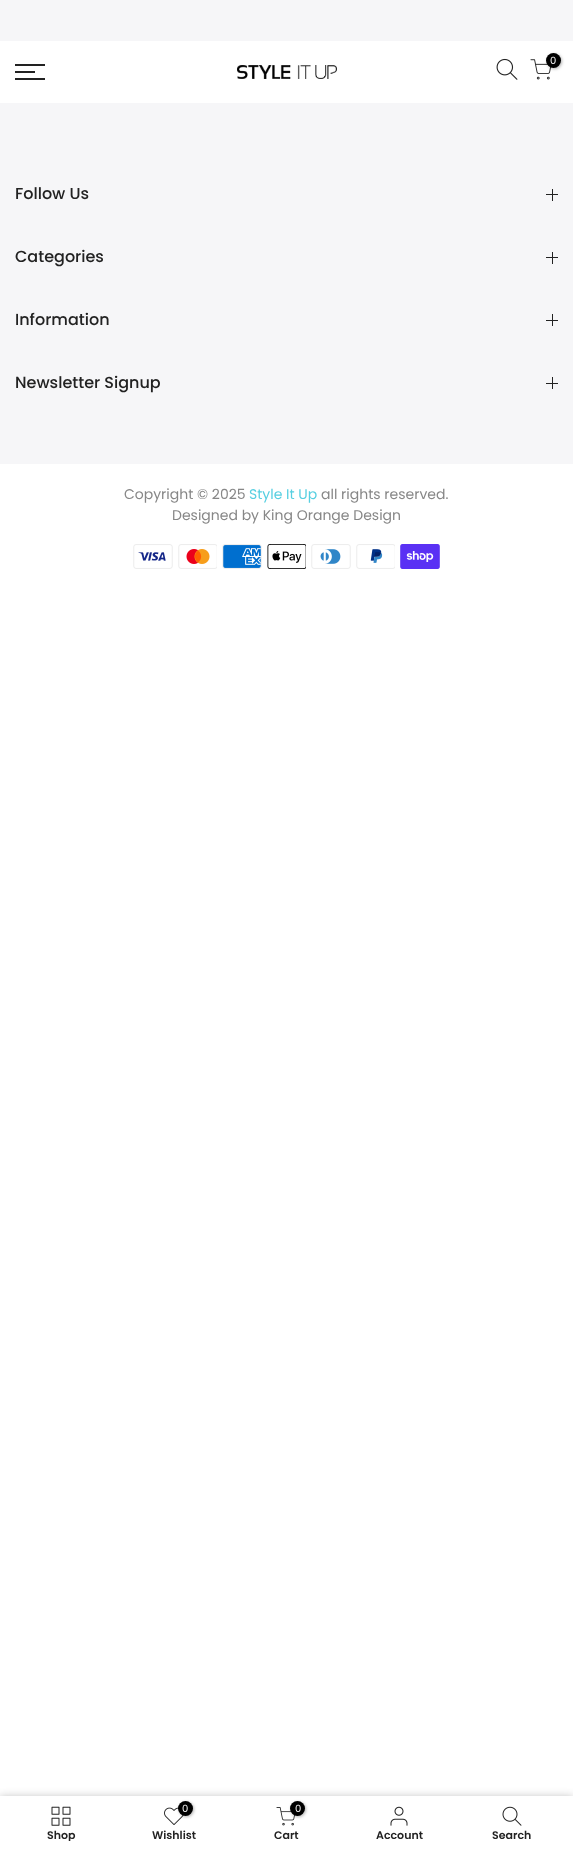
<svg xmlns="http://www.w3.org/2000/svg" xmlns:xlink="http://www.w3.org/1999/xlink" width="573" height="1851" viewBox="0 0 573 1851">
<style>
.cls-1{font:10px Poppins;fill:#ffffff}
.cls-2{font:500 16px Poppins;fill:#222222}
.cls-3{font:14px Poppins;fill:#878787}
.cls-4{font:14px Poppins;fill:#56cfe1}
.cls-5{font:600 11px Poppins;fill:#222222}
</style>
<defs>
<clipPath id="clip1"><rect x="15" y="1830" width="93" height="11"/></clipPath>
</defs>
<rect width="100%" height="100%" fill="#ffffff"/>
<rect fill="#f6f6f8" x="0" y="0" width="573" height="41"/>
<image xlink:href="image0.png" x="496" y="58" width="22" height="22"/>
<image xlink:href="image1.png" x="530" y="59" width="21" height="21"/>
<rect fill="#000000" fill-opacity="0.3" filter="blur(1.5px)" x="547" y="54" width="15" height="15" rx="7.5"/>
<circle fill="#000000" cx="553.5" cy="60.5" r="7.5"/>
<rect fill="#222222" x="15" y="64" width="30" height="2"/>
<rect fill="#222222" x="15" y="71" width="20" height="2"/>
<rect fill="#222222" x="15" y="78" width="30" height="2"/>
<image xlink:href="image2.png" x="237" y="65" width="100" height="14"/>
<rect fill="#f6f6f8" x="0" y="103" width="573" height="361"/>
<rect fill="#222222" x="552" y="189" width="1" height="12"/>
<rect fill="#222222" x="546" y="194" width="12" height="1"/>
<rect fill="#222222" x="552" y="252" width="1" height="12"/>
<rect fill="#222222" x="546" y="257" width="12" height="1"/>
<rect fill="#222222" x="552" y="314" width="1" height="12"/>
<rect fill="#222222" x="546" y="320" width="12" height="1"/>
<rect fill="#222222" x="552" y="377" width="1" height="12"/>
<rect fill="#222222" x="546" y="383" width="12" height="1"/>
<image xlink:href="image3.png" x="133" y="544" width="40" height="25"/>
<image xlink:href="image4.png" x="178" y="544" width="39" height="25"/>
<image xlink:href="image5.png" x="222" y="544" width="40" height="25"/>
<image xlink:href="image6.png" x="267" y="544" width="39" height="25"/>
<image xlink:href="image7.png" x="311" y="544" width="40" height="25"/>
<image xlink:href="image8.png" x="356" y="544" width="39" height="25"/>
<image xlink:href="image9.png" x="400" y="544" width="40" height="25"/>
<rect fill="#000000" fill-opacity="0.12" filter="blur(4.5px)" x="0" y="1797" width="573" height="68"/>
<rect fill="#000000" fill-opacity="0.12" filter="blur(4.5px)" x="0" y="1796" width="573" height="55"/>
<rect fill="#ffffff" x="0" y="1796" width="573" height="55"/>
<image xlink:href="image10.png" x="51" y="1806" width="20" height="20"/>
<image xlink:href="image11.png" x="164" y="1807" width="20" height="18"/>
<rect fill="#000000" fill-opacity="0.3" filter="blur(1.5px)" x="179" y="1802" width="15" height="15" rx="7.5"/>
<circle fill="#000000" cx="185.5" cy="1808.5" r="7.5"/>
<image xlink:href="image12.png" x="276" y="1807" width="19" height="19"/>
<rect fill="#000000" fill-opacity="0.3" filter="blur(1.5px)" x="291" y="1802" width="15" height="15" rx="7.5"/>
<circle fill="#000000" cx="297.5" cy="1808.5" r="7.5"/>
<image xlink:href="image13.png" x="390" y="1806" width="18" height="20"/>
<image xlink:href="image14.png" x="502" y="1806" width="20" height="20"/>
<text class="cls-1" x="550" y="64">0</text>
<text class="cls-2" x="15" y="199">Follow Us</text>
<text class="cls-2" x="15" y="262">Categories</text>
<text class="cls-2" x="15" y="325">Information</text>
<text class="cls-2" x="15" y="388">Newsletter Signup</text>
<text class="cls-3" x="124" y="499">Copyright © 2025</text>
<text class="cls-4" x="249" y="499">Style It Up</text>
<text class="cls-3" x="321" y="499">all rights reserved.</text>
<text class="cls-3" x="172" y="520">Designed by King Orange Design</text>
<g clip-path="url(#clip1)">
<text class="cls-5" x="47" y="1839">Shop</text>
</g>
<text class="cls-1" x="182" y="1812">0</text>
<text class="cls-5" x="152" y="1839">Wishlist</text>
<text class="cls-1" x="295" y="1812">0</text>
<text class="cls-5" x="274" y="1839">Cart</text>
<text class="cls-5" x="376" y="1839">Account</text>
<text class="cls-5" x="492" y="1839">Search</text>
</svg>
